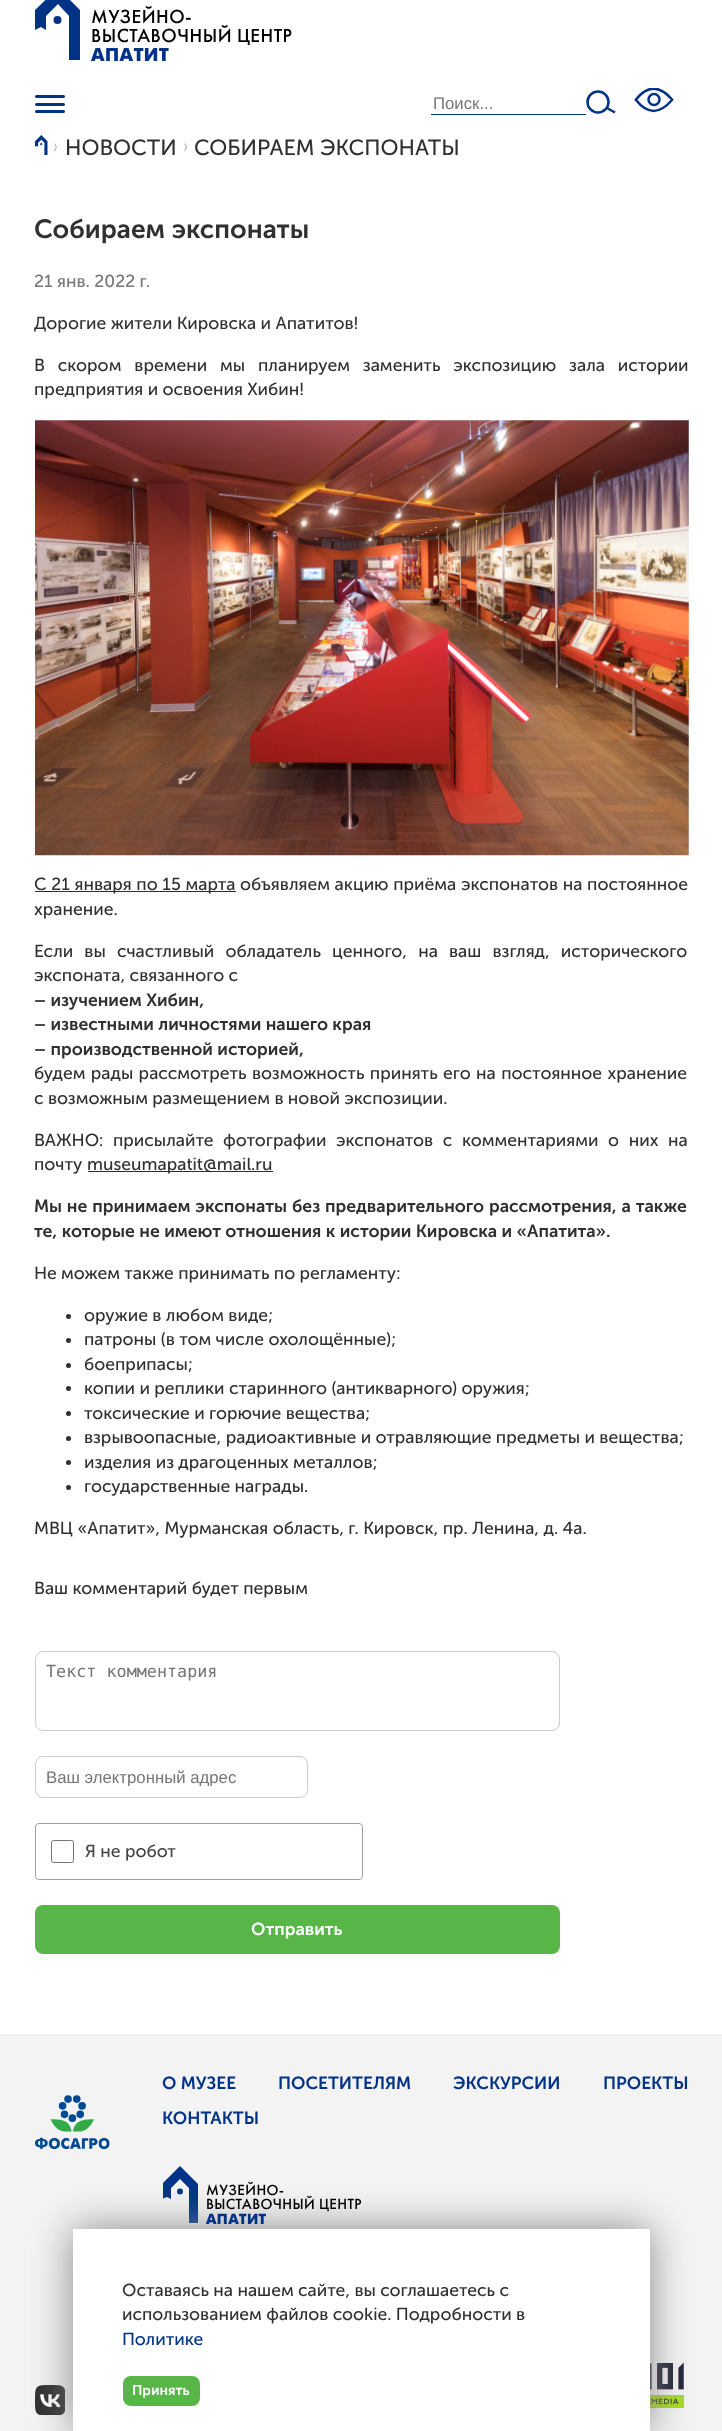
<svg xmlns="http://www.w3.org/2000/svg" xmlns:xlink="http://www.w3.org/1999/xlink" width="722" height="2431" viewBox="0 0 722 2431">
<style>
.cls-1{font:18.75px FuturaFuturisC;letter-spacing:0.5px;fill:#000000}
.cls-2{font:bold 18.75px FuturaFuturisC;letter-spacing:0.5px;fill:#003387}
.cls-3{font:16.75px Liberation Sans;fill:#757575}
.cls-4{font:9px FreeSans;fill:#888888}
.cls-5{font:21.9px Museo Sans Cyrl;fill:#303030}
.cls-6{font:600 26.25px Museo Sans Cyrl;fill:#303030}
.cls-7{font:17.5px Museo Sans Cyrl;fill:#75777b}
.cls-8{font:17.5px Museo Sans Cyrl;fill:#303030}
.cls-9{font:600 17.5px Museo Sans Cyrl;fill:#303030}
.cls-10{font:16.75px DejaVu Sans Mono;fill:#757575}
.cls-11{font:17.5px Museo Sans Cyrl;fill:#444444}
.cls-12{font:600 17.5px Museo Sans Cyrl;fill:#ffffff}
.cls-13{font:600 17.5px Museo Sans Cyrl;fill:#003387}
.cls-14{font:14.5px FuturaFuturisC;letter-spacing:0.4px;fill:#000000}
.cls-15{font:bold 14.5px FuturaFuturisC;letter-spacing:0.4px;fill:#003387}
.cls-16{font:17.5px Museo Sans Cyrl;fill:#003387}
.cls-17{font:600 14px Museo Sans Cyrl;fill:#ffffff}
</style>
<defs>
<clipPath id="clip1"><rect x="35" y="0" width="45" height="60"/></clipPath>
<clipPath id="clip2"><rect x="634" y="88" width="41" height="25"/></clipPath>
<clipPath id="clip3"><path d="M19 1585H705V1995H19ZM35 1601H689V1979H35Z" clip-rule="evenodd"/></clipPath>
<clipPath id="clip4"><rect x="163" y="2166" width="35" height="57"/></clipPath>
<clipPath id="clip5"><rect x="46" y="1768" width="250" height="18"/></clipPath>
</defs>
<rect width="100%" height="100%" fill="#ffffff"/>
<g clip-path="url(#clip1)">
<path fill="#003387" d="M35 30V10L58-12L80 10V61H69V16L58 4L46 16V30L41 27Z"/>
</g>
<circle fill="#003387" cx="57.5" cy="20" r="4"/>
<rect fill="#003387" x="35" y="103" width="30" height="3" rx="1.5"/>
<rect fill="#003387" x="35" y="95" width="30" height="3" rx="1.5"/>
<rect fill="#003387" x="35" y="110" width="30" height="3" rx="1.5"/>
<rect fill="#003387" x="431" y="114" width="155" height="1"/>
<circle fill="none" stroke="#003387" stroke-width="2.5" cx="598" cy="102" r="10.5"/>
<path fill="none" stroke="#003387" stroke-width="2.5" d="M607 108L615 112.5"/>
<g clip-path="url(#clip2)">
<path fill="none" stroke="#003387" stroke-width="2.5" stroke-linecap="square" d="M636 99.5C647.5 85 659.5 85 672 99.5M636 100C647.5 114.5 659.5 114.5 672 100"/>
</g>
<circle fill="none" stroke="#003387" stroke-width="2.5" cx="654" cy="99.5" r="5.5"/>
<image xlink:href="image0.png" x="35" y="135" width="13" height="20"/>
<image xlink:href="image1.png" x="35" y="420" width="654" height="436"/>
<rect fill="#303030" x="35" y="891" width="201" height="1"/>
<rect fill="#303030" x="88" y="1171" width="185" height="1"/>
<circle fill="#303030" cx="68.5" cy="1316.5" r="2.5"/>
<circle fill="#303030" cx="68.5" cy="1340.5" r="2.5"/>
<circle fill="#303030" cx="68.5" cy="1365.5" r="2.5"/>
<circle fill="#303030" cx="68.5" cy="1388.5" r="2.5"/>
<circle fill="#303030" cx="68.5" cy="1413.5" r="2.5"/>
<circle fill="#303030" cx="68.5" cy="1438.5" r="2.5"/>
<circle fill="#303030" cx="68.5" cy="1462.5" r="2.5"/>
<circle fill="#303030" cx="68.5" cy="1487.5" r="2.5"/>
<g clip-path="url(#clip3)">
<rect fill="#ffffff" filter="blur(5px)" x="35" y="1601" width="654" height="378"/>
</g>
<rect fill="none" stroke="#cccccc" x="35.5" y="1651.5" width="524" height="79" rx="7.5"/>
<rect fill="none" stroke="#cccccc" x="35.5" y="1756.5" width="272" height="41" rx="7.5"/>
<rect fill="none" stroke="#a0a0a0" x="35.5" y="1823.5" width="327" height="56" rx="3.5"/>
<rect fill="none" stroke="#767676" x="51.5" y="1840.5" width="22" height="22" rx="2"/>
<rect fill="#57b647" x="35" y="1905" width="525" height="49" rx="8"/>
<rect fill="#f3f3f3" x="0" y="2034" width="722" height="397"/>
<image xlink:href="image2.png" x="35" y="2095" width="75" height="54"/>
<g clip-path="url(#clip4)">
<path fill="#003387" d="M162 2199V2184L180 2166L198 2184V2223H189V2188L180 2179L171 2188V2199L167 2197Z"/>
</g>
<circle fill="#003387" cx="180" cy="2191.5" r="3"/>
<image xlink:href="image3.png" x="35" y="2385" width="30" height="30"/>
<image xlink:href="image4.png" x="650" y="2363" width="34" height="45"/>
<rect fill="#888888" filter="blur(20px)" x="73" y="2229" width="577" height="202"/>
<rect fill="#ffffff" x="73" y="2229" width="577" height="202"/>
<rect fill="#57b647" x="123" y="2376" width="77" height="30" rx="8"/>
<text class="cls-1"><tspan x="91" y="23">МУЗЕЙНО-</tspan><tspan x="91" y="42">ВЫСТАВОЧНЫЙ ЦЕНТР</tspan></text>
<text class="cls-2" x="91" y="61">АПАТИТ</text>
<text class="cls-3" x="433" y="109">Поиск...</text>
<text class="cls-4" x="54" y="150">〉</text>
<text class="cls-5" x="65" y="155">НОВОСТИ</text>
<text class="cls-4" x="184" y="150">〉</text>
<text class="cls-5" x="194" y="155">СОБИРАЕМ ЭКСПОНАТЫ</text>
<text class="cls-6" x="34" y="238">Собираем экспонаты</text>
<text class="cls-7" x="34" y="287">21 янв. 2022 г.</text>
<text class="cls-8" x="34" y="329">Дорогие жители Кировска и Апатитов!</text>
<text class="cls-8"><tspan x="34" y="371" word-spacing="8.5">В скором времени мы планируем заменить экспозицию зала истории</tspan><tspan x="34" y="395">предприятия и освоения Хибин!</tspan></text>
<text class="cls-8"><tspan x="34" y="890" word-spacing="0.25">С 21 января по 15 марта объявляем акцию приёма экспонатов на постоянное</tspan><tspan x="34" y="915">хранение.</tspan></text>
<text class="cls-8"><tspan x="34" y="957" word-spacing="6.75">Если вы счастливый обладатель ценного, на ваш взгляд, исторического</tspan><tspan x="34" y="981">экспоната, связанного с</tspan></text>
<text class="cls-9"><tspan x="34" y="1006">– изучением Хибин,</tspan><tspan x="34" y="1030">– известными личностями нашего края</tspan><tspan x="34" y="1055">– производственной историей,</tspan></text>
<text class="cls-8"><tspan x="34" y="1079" word-spacing="1">будем рады рассмотреть возможность принять его на постоянное хранение</tspan><tspan x="34" y="1104">с возможным размещением в новой экспозиции.</tspan></text>
<text class="cls-8"><tspan x="34" y="1146" word-spacing="5.25">ВАЖНО: присылайте фотографии экспонатов с комментариями о них на</tspan><tspan x="34" y="1170">почту</tspan></text>
<text class="cls-8" x="87" y="1170">museumapatit@mail.ru</text>
<text class="cls-9"><tspan x="34" y="1212" word-spacing="0.5">Мы не принимаем экспонаты без предварительного рассмотрения, а также</tspan><tspan x="34" y="1237">те, которые не имеют отношения к истории Кировска и «Апатита».</tspan></text>
<text class="cls-8" x="34" y="1279">Не можем также принимать по регламенту:</text>
<text class="cls-8"><tspan x="84" y="1321">оружие в любом виде;</tspan><tspan x="84" y="1345">патроны (в том числе охолощённые);</tspan><tspan x="84" y="1370">боеприпасы;</tspan><tspan x="84" y="1394">копии и реплики старинного (антикварного) оружия;</tspan><tspan x="84" y="1419">токсические и горючие вещества;</tspan><tspan x="84" y="1443">взрывоопасные, радиоактивные и отравляющие предметы и вещества;</tspan><tspan x="84" y="1468">изделия из драгоценных металлов;</tspan><tspan x="84" y="1492">государственные награды.</tspan></text>
<text class="cls-8" x="34" y="1534">МВЦ «Апатит», Мурманская область, г. Кировск, пр. Ленина, д. 4а.</text>
<text class="cls-8" x="34" y="1594">Ваш комментарий будет первым</text>
<text class="cls-10" x="46" y="1677">Текст комментария</text>
<g clip-path="url(#clip5)">
<text class="cls-3" x="46" y="1783">Ваш электронный адрес</text>
</g>
<text class="cls-11" x="85" y="1857">Я не робот</text>
<text class="cls-12" x="251" y="1935">Отправить</text>
<text class="cls-13" x="162" y="2089">О МУЗЕЕ</text>
<text class="cls-13" x="278" y="2089">ПОСЕТИТЕЛЯМ</text>
<text class="cls-13" x="453" y="2089">ЭКСКУРСИИ</text>
<text class="cls-13" x="603" y="2089">ПРОЕКТЫ</text>
<text class="cls-13" x="162" y="2124">КОНТАКТЫ</text>
<text class="cls-14"><tspan x="206" y="2195">МУЗЕЙНО-</tspan><tspan x="206" y="2209">ВЫСТАВОЧНЫЙ ЦЕНТР</tspan></text>
<text class="cls-15" x="206" y="2224">АПАТИТ</text>
<text class="cls-8"><tspan x="122" y="2296">Оставаясь на нашем сайте, вы соглашаетесь с</tspan><tspan x="122" y="2320">использованием файлов cookie. Подробности в</tspan></text>
<text class="cls-16" x="122" y="2345">Политике</text>
<text class="cls-17" x="132" y="2395">Принять</text>
</svg>
